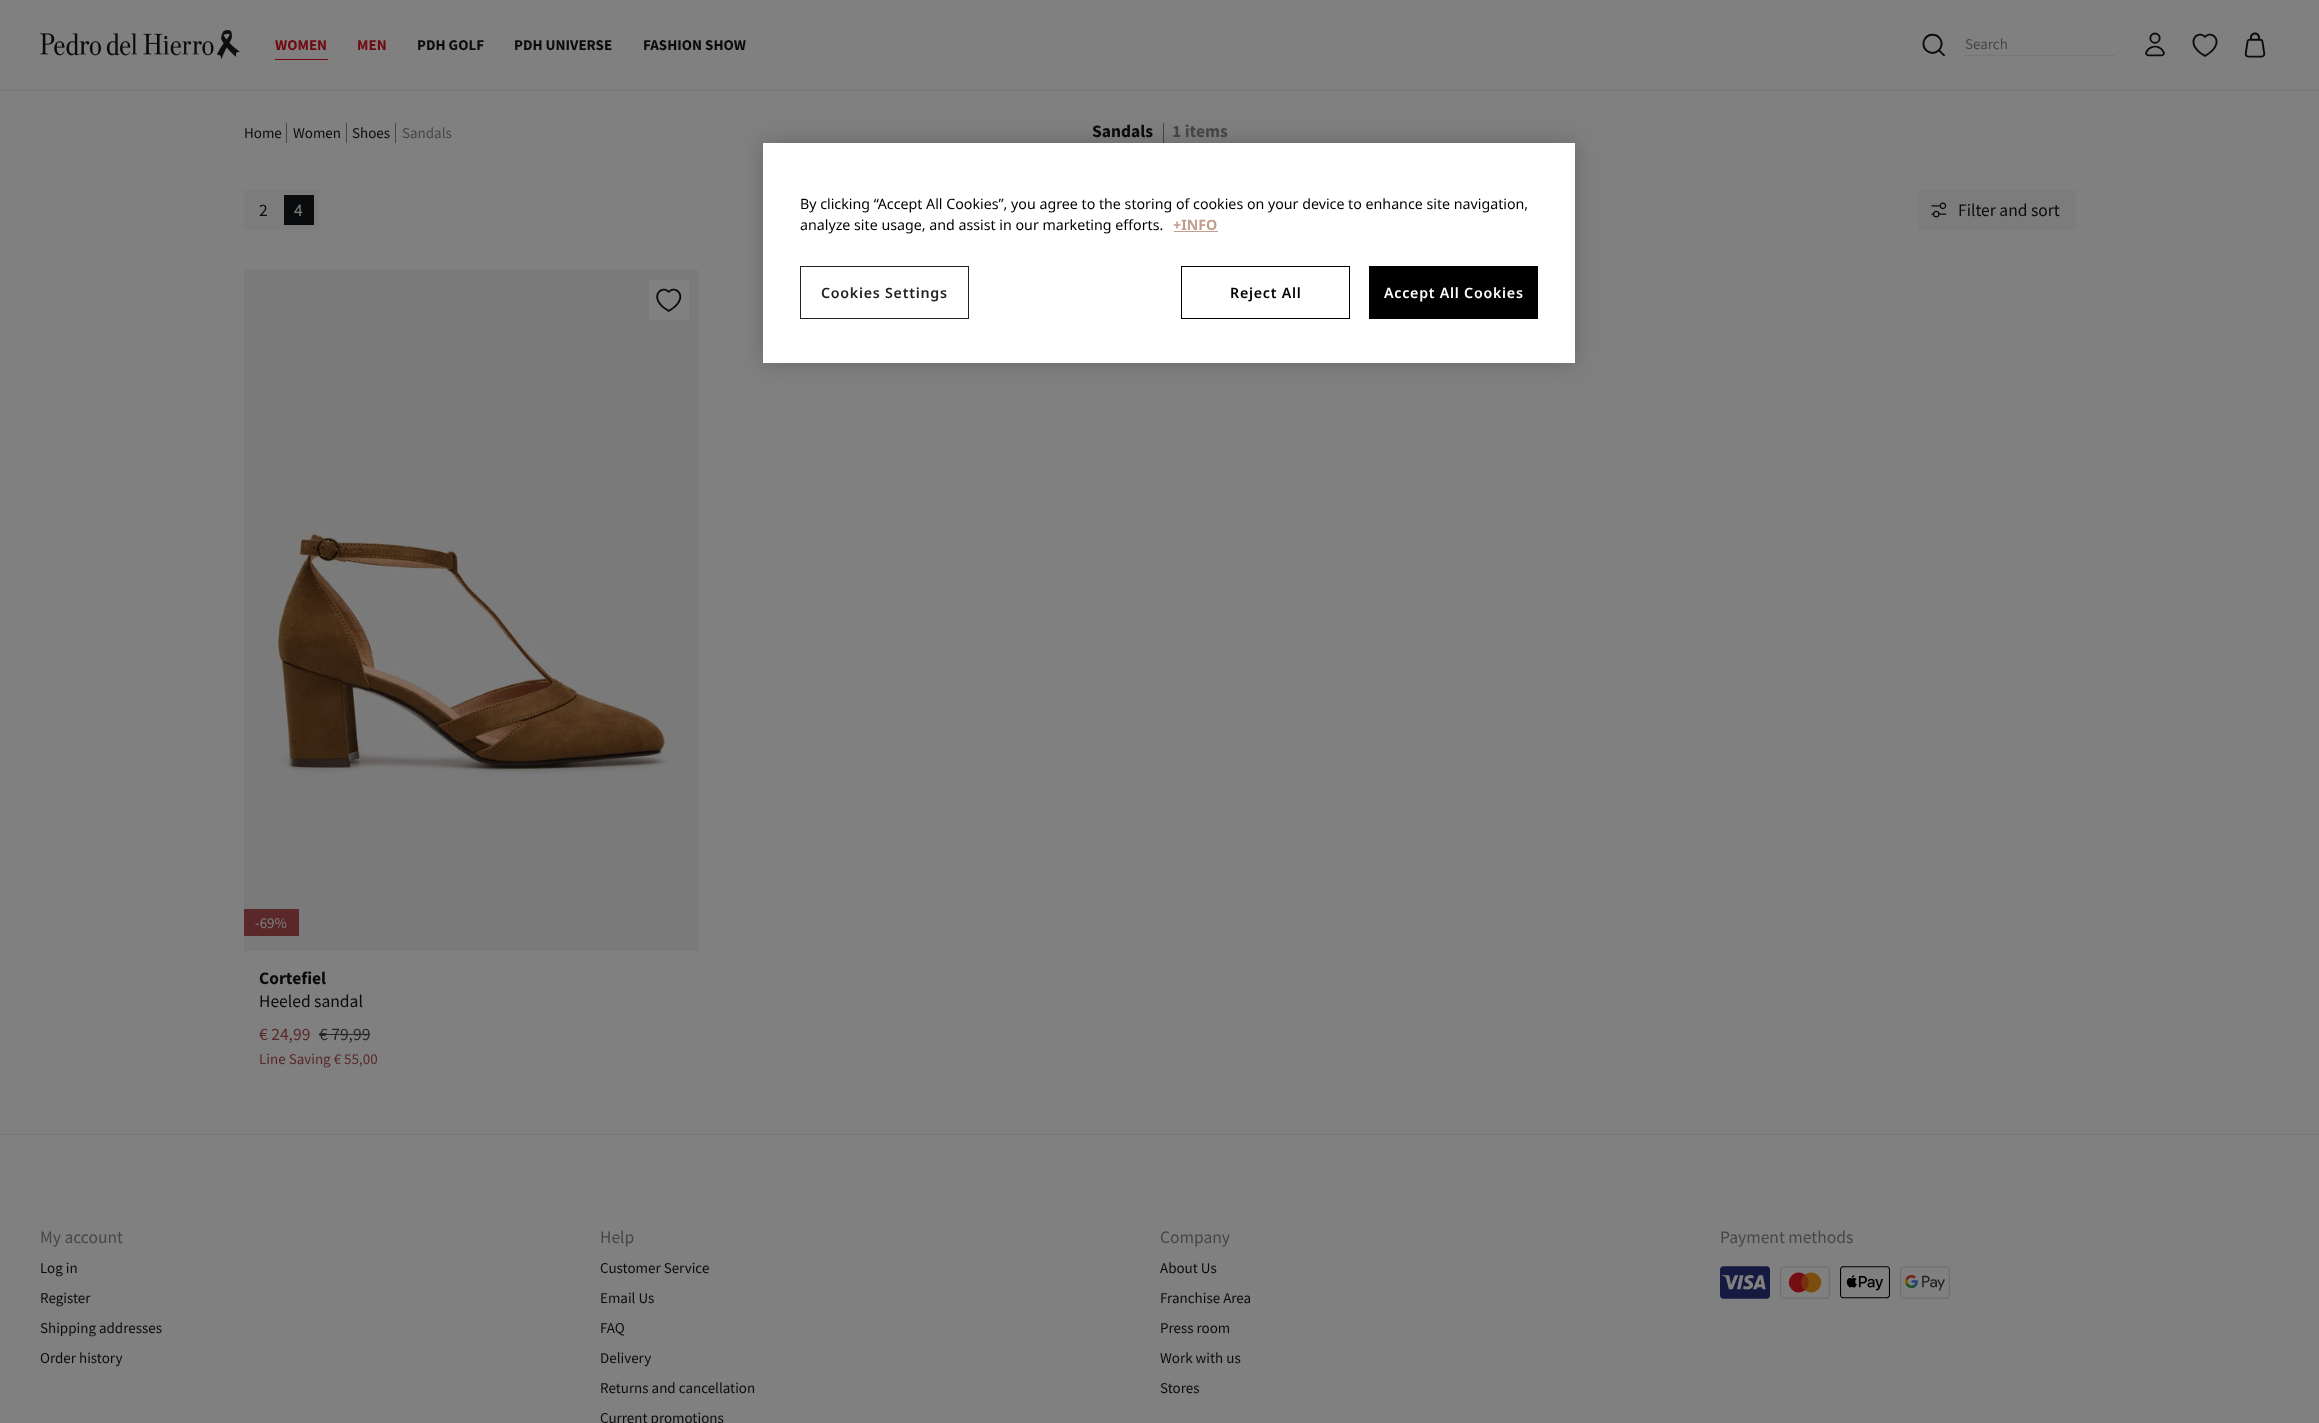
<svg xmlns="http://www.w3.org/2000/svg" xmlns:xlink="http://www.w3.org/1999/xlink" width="2319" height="1423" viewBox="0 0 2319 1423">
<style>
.cls-1{font:bold 15px Source Sans Pro;fill:#710a0f}
.cls-2{font:bold 15px Source Sans Pro;fill:#0a0b0c}
.cls-3{font:15px Source Sans Pro;fill:#444648}
.cls-4{font:15px Source Sans Pro;fill:#0a0b0c}
.cls-5{font:bold 17.5px Source Sans Pro;fill:#0a0b0c}
.cls-6{font:bold 17.5px Source Sans Pro;fill:#444648}
.cls-7{font:17.5px Source Sans Pro;fill:#0a0b0c}
.cls-8{font:17.5px Source Sans Pro;fill:#808080}
.cls-9{font:15px Source Sans Pro;fill:#808080}
.cls-10{font:17.5px Source Sans Pro;fill:#5a2828}
.cls-11{font:17.5px Source Sans Pro;fill:#26292c}
.cls-12{font:15px Source Sans Pro;fill:#5a2828}
.cls-13{font:17.5px Source Sans Pro;fill:#444648}
.cls-14{font:14.23px Noto Sans;fill:#000000}
.cls-15{font:bold 14.23px Noto Sans;fill:#c29e8e}
.cls-16{font:600 14.23px Noto Sans;letter-spacing:0.75px;fill:#232221}
.cls-17{font:600 14.23px Noto Sans;letter-spacing:0.75px;fill:#000000}
.cls-18{font:600 14.23px Noto Sans;letter-spacing:0.75px;fill:#ffffff}
</style>
<rect width="100%" height="100%" fill="#808080"/>
<rect fill="#767676" x="0" y="90" width="2319" height="1"/>
<image xlink:href="image0.png" x="40" y="30" width="200" height="29"/>
<rect fill="#710a0f" x="275" y="59" width="53" height="1"/>
<image xlink:href="image1.png" x="1922" y="33" width="23" height="24"/>
<rect fill="#767676" x="1965" y="55" width="150" height="1"/>
<image xlink:href="image2.png" x="2145" y="32" width="20" height="25"/>
<image xlink:href="image3.png" x="2192" y="33" width="26" height="24"/>
<image xlink:href="image4.png" x="2244" y="32" width="22" height="26"/>
<rect fill="#444648" x="286" y="123" width="1" height="20"/>
<rect fill="#444648" x="346" y="123" width="1" height="20"/>
<rect fill="#444648" x="395" y="123" width="1" height="20"/>
<rect fill="#444648" x="1163" y="123" width="1" height="20"/>
<rect fill="#7c7c7c" x="244" y="190" width="75" height="40"/>
<rect fill="#0a0b0c" x="284" y="195" width="30" height="30"/>
<rect fill="#7c7c7c" x="1918" y="190" width="158" height="40"/>
<image xlink:href="image5.png" x="1931" y="202" width="16" height="16"/>
<image xlink:href="image6.png" x="244" y="270" width="455" height="681"/>
<rect fill="#808080" x="649" y="280" width="40" height="40"/>
<image xlink:href="image7.png" x="656" y="288" width="26" height="24"/>
<rect fill="#5a2828" x="244" y="909" width="55" height="27"/>
<rect fill="#26292c" x="319" y="1034" width="51" height="1"/>
<rect fill="#767676" x="0" y="1134" width="2319" height="1"/>
<image xlink:href="image8.png" x="1720" y="1266" width="50" height="33"/>
<image xlink:href="image9.png" x="1780" y="1266" width="50" height="33"/>
<image xlink:href="image10.png" x="1840" y="1266" width="50" height="33"/>
<image xlink:href="image11.png" x="1900" y="1266" width="50" height="33"/>
<rect fill="#000000" fill-opacity="0.2" filter="blur(11px)" x="763" y="143" width="812" height="220"/>
<rect fill="#ffffff" x="763" y="143" width="812" height="220"/>
<rect fill="#c29e8e" x="1174" y="231" width="44" height="1"/>
<rect fill="none" stroke="#232221" x="800.5" y="266.5" width="168" height="52"/>
<rect fill="none" stroke="#000000" x="1181.5" y="266.5" width="168" height="52"/>
<rect fill="#000000" x="1369" y="266" width="169" height="53"/>
<text class="cls-1" x="275" y="50">WOMEN</text>
<text class="cls-1" x="357" y="50">MEN</text>
<text class="cls-2" x="417" y="50">PDH GOLF</text>
<text class="cls-2" x="514" y="50">PDH UNIVERSE</text>
<text class="cls-2" x="643" y="50">FASHION SHOW</text>
<text class="cls-3" x="1965" y="49">Search</text>
<text class="cls-4" x="244" y="138">Home</text>
<text class="cls-4" x="293" y="138">Women</text>
<text class="cls-4" x="352" y="138">Shoes</text>
<text class="cls-3" x="402" y="138">Sandals</text>
<text class="cls-5" x="1092" y="137">Sandals</text>
<text class="cls-6" x="1172" y="137">1 items</text>
<text class="cls-7" x="259" y="216">2</text>
<text class="cls-8" x="294" y="216">4</text>
<text class="cls-7" x="1958" y="216">Filter and sort</text>
<text class="cls-9" x="255" y="928">-69%</text>
<text class="cls-5" x="259" y="984">Cortefiel</text>
<text class="cls-7" x="259" y="1007">Heeled sandal</text>
<text class="cls-10" x="259" y="1040">€ 24,99</text>
<text class="cls-11" x="319" y="1040">€ 79,99</text>
<text class="cls-12" x="259" y="1064">Line Saving € 55,00</text>
<text class="cls-13" x="40" y="1243">My account</text>
<text class="cls-4" x="40" y="1273">Log in</text>
<text class="cls-4" x="40" y="1303">Register</text>
<text class="cls-4" x="40" y="1333">Shipping addresses</text>
<text class="cls-4" x="40" y="1363">Order history</text>
<text class="cls-13" x="600" y="1243">Help</text>
<text class="cls-4" x="600" y="1273">Customer Service</text>
<text class="cls-4" x="600" y="1303">Email Us</text>
<text class="cls-4" x="600" y="1333">FAQ</text>
<text class="cls-4" x="600" y="1363">Delivery</text>
<text class="cls-4" x="600" y="1393">Returns and cancellation</text>
<text class="cls-4" x="600" y="1423">Current promotions</text>
<text class="cls-13" x="1160" y="1243">Company</text>
<text class="cls-4" x="1160" y="1273">About Us</text>
<text class="cls-4" x="1160" y="1303">Franchise Area</text>
<text class="cls-4" x="1160" y="1333">Press room</text>
<text class="cls-4" x="1160" y="1363">Work with us</text>
<text class="cls-4" x="1160" y="1393">Stores</text>
<text class="cls-13" x="1720" y="1243">Payment methods</text>
<text class="cls-14"><tspan x="800" y="209">By clicking “Accept All Cookies”, you agree to the storing of cookies on your device to enhance site navigation,</tspan><tspan x="800" y="230">analyze site usage, and assist in our marketing efforts.</tspan></text>
<text class="cls-15" x="1173" y="230">+INFO</text>
<text class="cls-16" x="821" y="298">Cookies Settings</text>
<text class="cls-17" x="1230" y="298">Reject All</text>
<text class="cls-18" x="1384" y="298">Accept All Cookies</text>
</svg>
